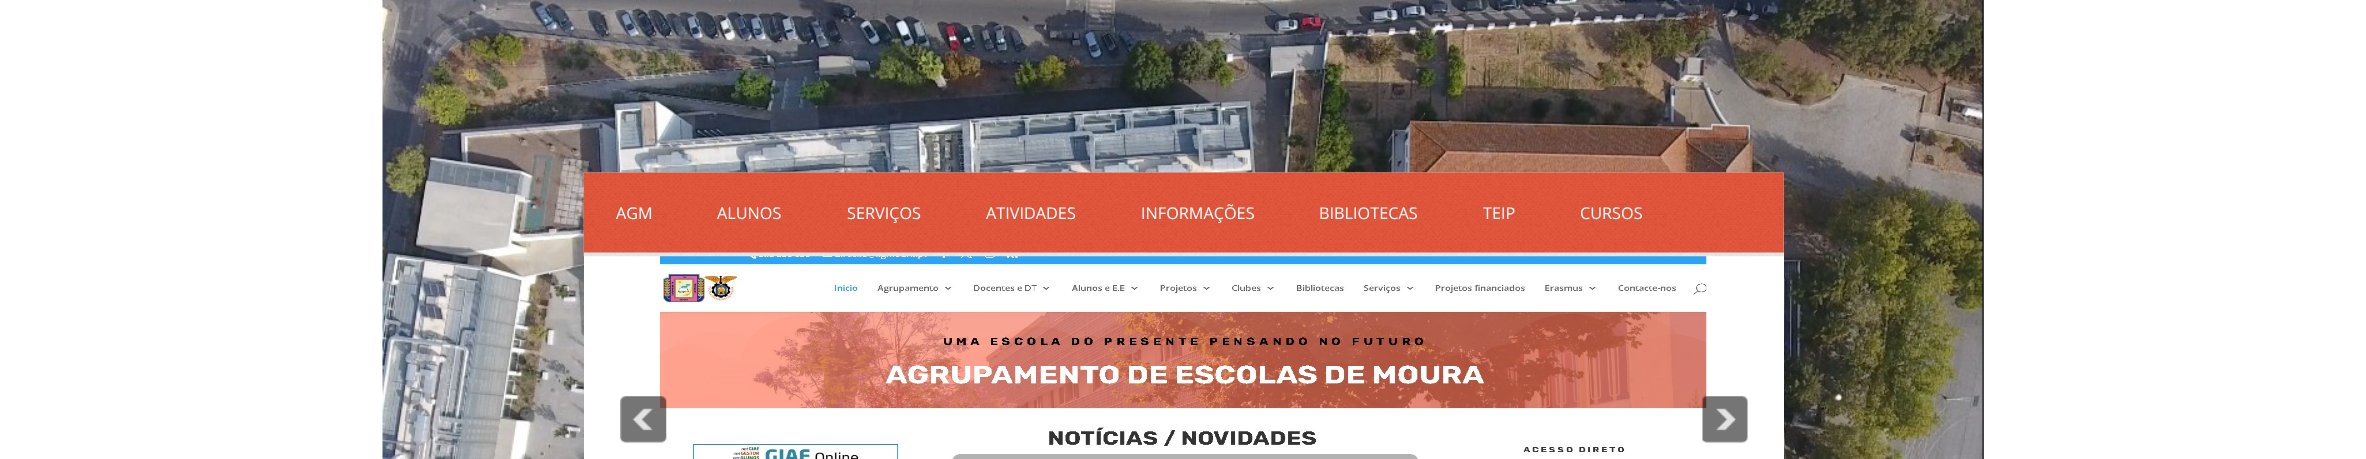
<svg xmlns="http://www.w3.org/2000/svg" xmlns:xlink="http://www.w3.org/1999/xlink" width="2366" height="459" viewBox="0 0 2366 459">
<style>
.cls-1{font:16.25px Open Sans;fill:#ffffff}
</style>
<rect width="100%" height="100%" fill="#ffffff"/>
<image xlink:href="image0.png" x="382" y="0" width="1602" height="459"/>
<image xlink:href="image1.png" x="583" y="221" width="1201" height="7"/>
<rect fill="#ffffff" x="584" y="228" width="1200" height="231"/>
<image xlink:href="image4.png" x="660" y="256" width="1047" height="203"/>
<image xlink:href="image2.png" x="583" y="172" width="1201" height="85"/>
<image xlink:href="image3.png" x="583" y="172" width="1201" height="81"/>
<image xlink:href="image5.png" x="620" y="396" width="47" height="47"/>
<image xlink:href="image6.png" x="1702" y="396" width="46" height="47"/>
<text class="cls-1" x="616" y="219">AGM</text>
<text class="cls-1" x="717" y="219">ALUNOS</text>
<text class="cls-1" x="847" y="219">SERVIÇOS</text>
<text class="cls-1" x="986" y="219">ATIVIDADES</text>
<text class="cls-1" x="1141" y="219">INFORMAÇÕES</text>
<text class="cls-1" x="1319" y="219">BIBLIOTECAS</text>
<text class="cls-1" x="1483" y="219">TEIP</text>
<text class="cls-1" x="1580" y="219">CURSOS</text>
</svg>
